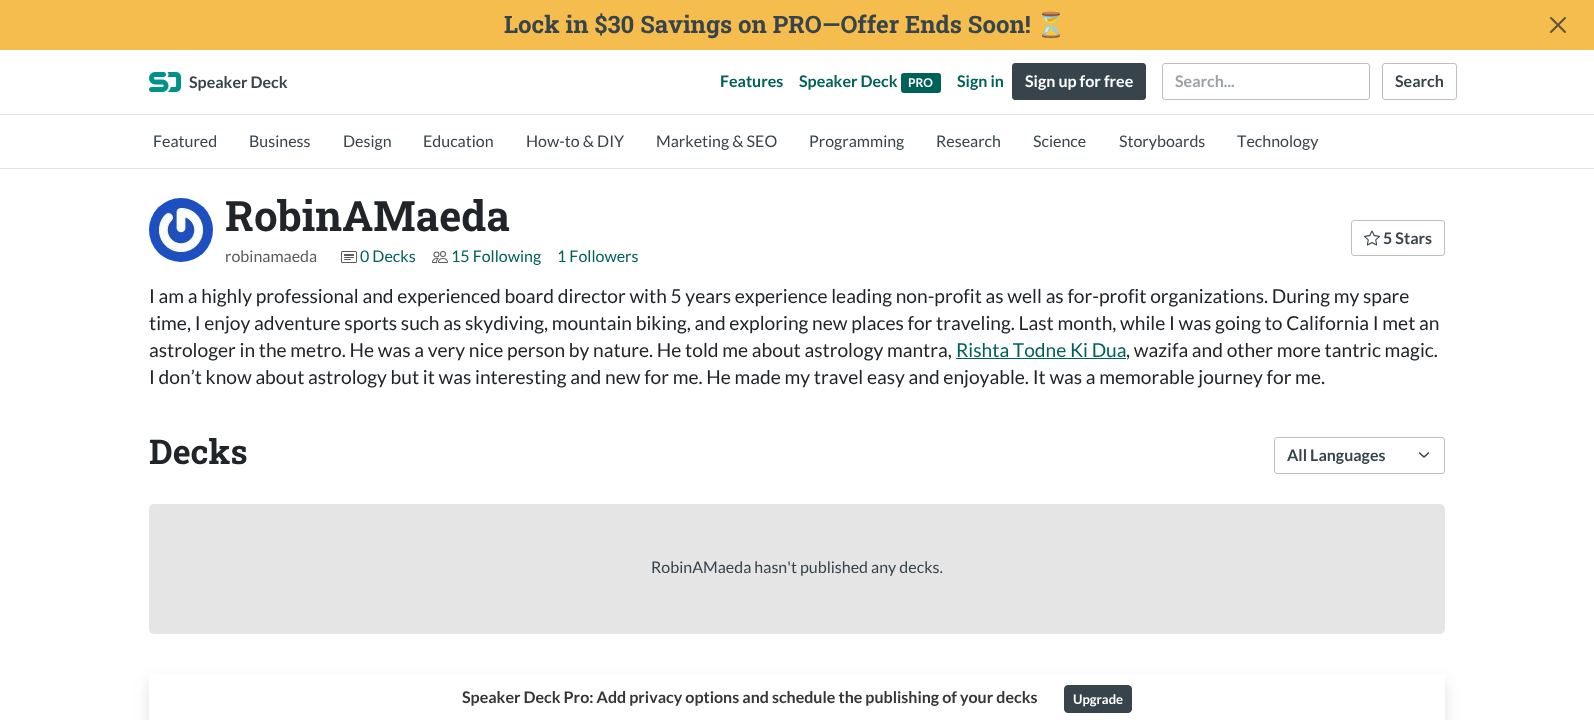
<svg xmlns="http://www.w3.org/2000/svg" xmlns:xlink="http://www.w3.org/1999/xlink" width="1594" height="720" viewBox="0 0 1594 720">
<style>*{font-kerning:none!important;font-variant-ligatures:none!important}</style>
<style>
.cls-1{font:bold 24px Roboto Slab;fill:#38444b}
.cls-2{font:bold 24px Noto Color Emoji;fill:#38444b}
.cls-3{font:bold 16px Lato;fill:#38444b}
.cls-4{font:bold 16px Lato;fill:#006159}
.cls-5{font:bold 12px Lato;fill:#ffffff}
.cls-6{font:bold 16px Lato;fill:#ffffff}
.cls-7{font:bold 16px Lato;fill:#9ca2a5}
.cls-8{font:16px Lato;fill:#38444b}
.cls-9{font:bold 42px Roboto Slab;fill:#212529}
.cls-10{font:16px Lato;fill:#595c5f}
.cls-11{font:16px Lato;fill:#006159}
.cls-12{font:19.2px Lato;fill:#212529}
.cls-13{font:19.2px Lato;fill:#006159}
.cls-14{font:bold 34px Roboto Slab;fill:#212529}
.cls-15{font:bold 16px Lato;fill:#363537}
.cls-16{font:bold 13px Lato;fill:#ffffff}
</style>
<defs>
<clipPath id="clip1"><path d="M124 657H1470V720H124ZM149 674H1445V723H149Z" clip-rule="evenodd"/></clipPath>
</defs>
<rect width="100%" height="100%" fill="#ffffff"/>
<rect fill="#f5bd4d" x="0" y="0" width="1594" height="50"/>
<image xlink:href="image0.png" x="1550" y="17" width="16" height="16"/>
<rect fill="#e5e5e5" x="0" y="114" width="1594" height="1"/>
<image xlink:href="image1.png" x="149" y="72" width="32" height="20"/>
<rect fill="#006159" x="901" y="73" width="40" height="20" rx="3"/>
<rect fill="#38444b" stroke="#38444b" x="1012.5" y="63.5" width="133" height="36" rx="2.5"/>
<rect fill="none" stroke="#bfbfbf" x="1162.5" y="63.5" width="207" height="36" rx="2.5"/>
<rect fill="none" stroke="#bfbfbf" x="1382.5" y="63.5" width="74" height="36" rx="2.5"/>
<rect fill="#e5e5e5" x="0" y="168" width="1594" height="1"/>
<image xlink:href="image2.png" x="149" y="198" width="64" height="64"/>
<image xlink:href="image3.png" x="341" y="251" width="16" height="12"/>
<image xlink:href="image4.png" x="432" y="251" width="16" height="12"/>
<rect fill="none" stroke="#bfbfbf" x="1351.5" y="220.5" width="93" height="35" rx="2.5"/>
<image xlink:href="image5.png" x="1364" y="230" width="16" height="16"/>
<rect fill="#006159" x="956" y="358" width="170" height="1"/>
<path fill="none" stroke="#343a40" stroke-width="1.5" stroke-linecap="round" stroke-linejoin="round" d="M1419.5 453L1424 457L1428.5 453"/>
<rect fill="none" stroke="#bfbfbf" x="1274.5" y="437.5" width="170" height="36" rx="2.5"/>
<rect fill="#e5e5e5" x="149" y="504" width="1296" height="130" rx="5"/>
<g clip-path="url(#clip1)">
<rect fill="#363537" fill-opacity="0.15" filter="blur(8px)" x="149" y="682" width="1296" height="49"/>
</g>
<rect fill="#38444b" stroke="#38444b" x="1064.5" y="685.5" width="67" height="27" rx="3.5"/>
<text class="cls-1" x="504" y="33">Lock in $30 Savings on PRO—Offer Ends Soon!</text>
<text class="cls-2" x="1036" y="33">⏳</text>
<text class="cls-3" x="189" y="88">Speaker Deck</text>
<text class="cls-4" x="720" y="87">Features</text>
<text class="cls-4" x="799" y="87">Speaker Deck</text>
<text class="cls-5" x="908" y="87">PRO</text>
<text class="cls-4" x="957" y="87">Sign in</text>
<text class="cls-6" x="1025" y="87">Sign up for free</text>
<text class="cls-7" x="1175" y="87">Search...</text>
<text class="cls-3" x="1395" y="87">Search</text>
<text class="cls-8" x="153" y="147">Featured</text>
<text class="cls-8" x="249" y="147">Business</text>
<text class="cls-8" x="343" y="147">Design</text>
<text class="cls-8" x="423" y="147">Education</text>
<text class="cls-8" x="526" y="147">How-to &amp; DIY</text>
<text class="cls-8" x="656" y="147">Marketing &amp; SEO</text>
<text class="cls-8" x="809" y="147">Programming</text>
<text class="cls-8" x="936" y="147">Research</text>
<text class="cls-8" x="1033" y="147">Science</text>
<text class="cls-8" x="1119" y="147">Storyboards</text>
<text class="cls-8" x="1237" y="147">Technology</text>
<text class="cls-9" x="225" y="231">RobinAMaeda</text>
<text class="cls-10" x="225" y="262">robinamaeda</text>
<text class="cls-11" x="360" y="262">0 Decks</text>
<text class="cls-11" x="451" y="262">15 Following</text>
<text class="cls-11" x="557" y="262">1 Followers</text>
<text class="cls-3" x="1383" y="244">5 Stars</text>
<text class="cls-12"><tspan x="149" y="303">I am a highly professional and experienced board director with 5 years experience leading non-profit as well as for-profit organizations. During my spare</tspan><tspan x="149" y="330">time, I enjoy adventure sports such as skydiving, mountain biking, and exploring new places for traveling. Last month, while I was going to California I met an</tspan><tspan x="149" y="357">astrologer in the metro. He was a very nice person by nature. He told me about astrology mantra,</tspan></text>
<text class="cls-13" x="956" y="357">Rishta Todne Ki Dua</text>
<text class="cls-12" x="1126" y="357">, wazifa and other more tantric magic.</text>
<text class="cls-12" x="149" y="384">I don’t know about astrology but it was interesting and new for me. He made my travel easy and enjoyable. It was a memorable journey for me.</text>
<text class="cls-14" x="149" y="464">Decks</text>
<text class="cls-3" x="1287" y="461">All Languages</text>
<text class="cls-8" x="651" y="573">RobinAMaeda hasn't published any decks.</text>
<text class="cls-15" x="462" y="703">Speaker Deck Pro: Add privacy options and schedule the publishing of your decks</text>
<text class="cls-16" x="1073" y="704">Upgrade</text>
</svg>
